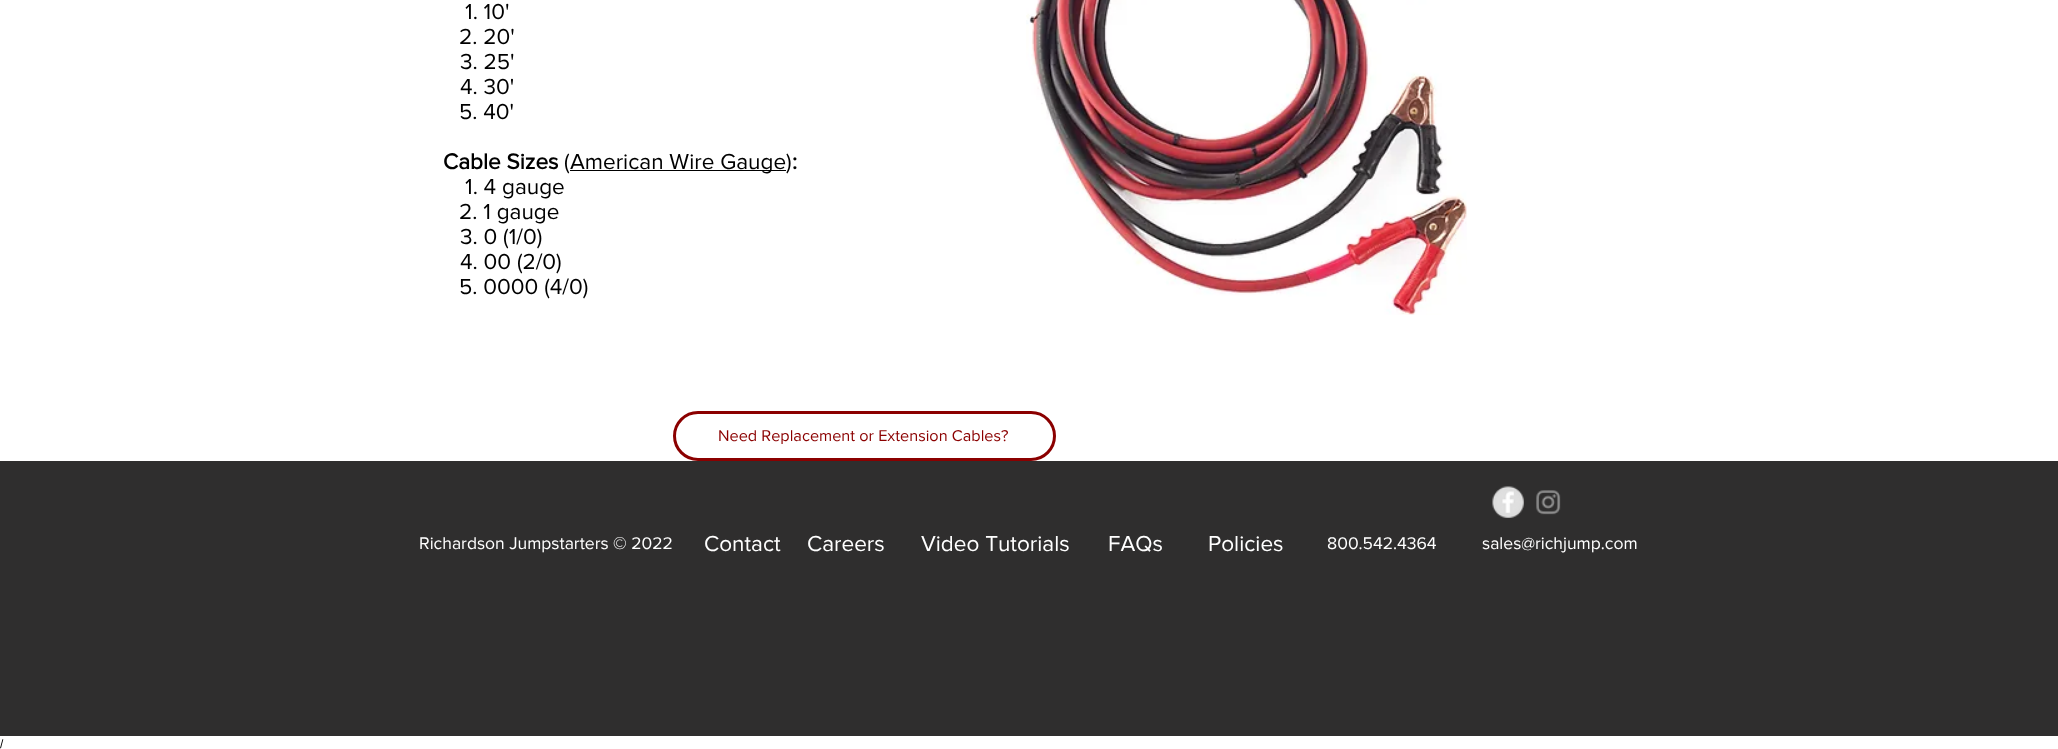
<svg xmlns="http://www.w3.org/2000/svg" xmlns:xlink="http://www.w3.org/1999/xlink" width="2058" height="749" viewBox="0 0 2058 749">
<style>
.cls-1{font:22.5px 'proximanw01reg';fill:#000000}
.cls-2{font:bold 22.5px 'proximanw01reg';fill:#000000}
.cls-3{font:16.25px 'proximanw01reg';fill:#8b0000}
.cls-4{font:17.5px 'proximanw01reg';fill:#ffffff}
.cls-5{font:22.5px 'proximanw01reg';fill:#ffffff}
.cls-6{font:12px Liberation Sans;fill:#000000}
</style>
<rect width="100%" height="100%" fill="#ffffff"/>
<rect fill="#000000" x="570" y="170" width="216" height="1"/>
<image xlink:href="image0.png" x="1026" y="0" width="441" height="315"/>
<rect fill="none" stroke="#8b0000" stroke-width="3" x="674.5" y="412.5" width="380" height="47" rx="23.5"/>
<rect fill="#2f2e2e" x="0" y="461" width="2058" height="275"/>
<image xlink:href="image1.png" x="1492" y="486" width="32" height="32"/>
<image xlink:href="image2.png" x="1536" y="490" width="25" height="25"/>
<text class="cls-1" x="465" y="19">1. 10'</text>
<text class="cls-1" x="459" y="44">2. 20'</text>
<text class="cls-1"><tspan x="460" y="69">3. 25'</tspan><tspan x="460" y="94">4. 30'</tspan></text>
<text class="cls-1" x="459" y="119">5. 40'</text>
<text class="cls-2" x="443" y="169">Cable Sizes</text>
<text class="cls-1" x="564" y="169">(</text>
<text class="cls-1" x="570" y="169">American Wire Gauge)</text>
<text class="cls-2" x="792" y="169">:</text>
<text class="cls-1" x="465" y="194">1. 4 gauge</text>
<text class="cls-1" x="459" y="219">2. 1 gauge</text>
<text class="cls-1"><tspan x="460" y="244">3. 0 (1/0)</tspan><tspan x="460" y="269">4. 00 (2/0)</tspan></text>
<text class="cls-1" x="459" y="294">5. 0000 (4/0)</text>
<text class="cls-3" x="718" y="441">Need Replacement or Extension Cables?</text>
<text class="cls-4" x="419" y="549">Richardson Jumpstarters © 2022</text>
<text class="cls-5" x="704" y="551">Contact</text>
<text class="cls-5" x="807" y="551">Careers</text>
<text class="cls-5" x="921" y="551">Video Tutorials</text>
<text class="cls-5" x="1108" y="551">FAQs</text>
<text class="cls-5" x="1208" y="551">Policies</text>
<text class="cls-4" x="1327" y="549">800.542.4364</text>
<text class="cls-4" x="1482" y="549">sales@richjump.com</text>
<text class="cls-6" x="0" y="748">/</text>
</svg>
